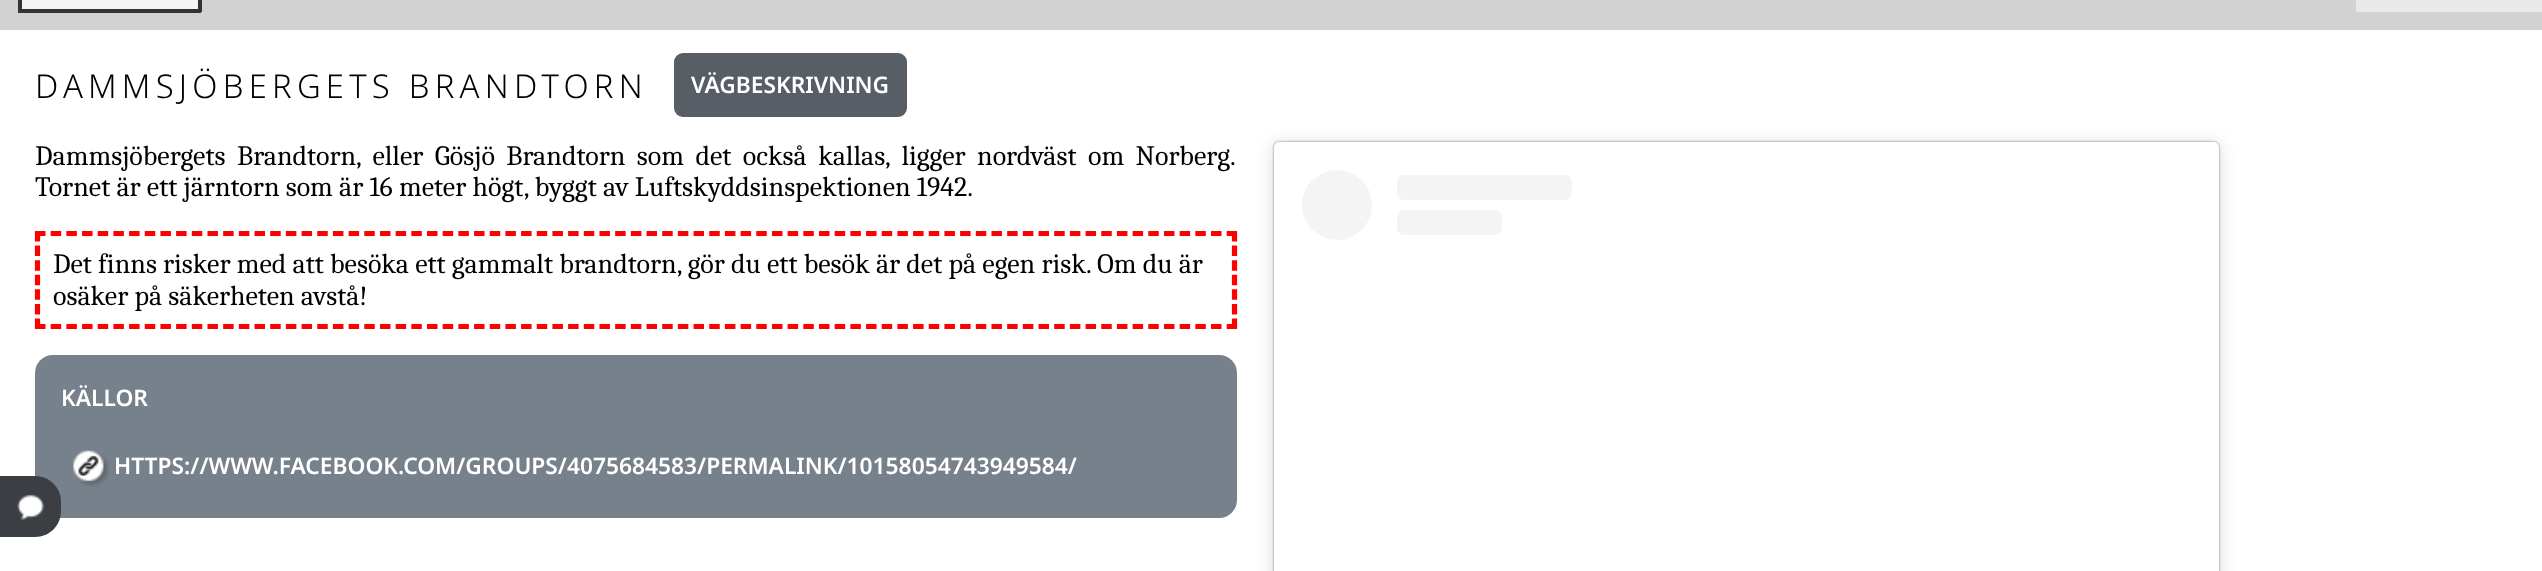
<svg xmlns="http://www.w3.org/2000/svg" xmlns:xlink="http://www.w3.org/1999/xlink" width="2542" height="571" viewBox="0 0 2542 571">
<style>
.cls-1{font:300 32.75px Noto Sans;letter-spacing:5.25px;fill:#000000}
.cls-2{font:600 22.75px Noto Sans;fill:#ffffff}
.cls-3{font:28px Caladea;fill:#000000}
</style>
<rect width="100%" height="100%" fill="#ffffff"/>
<rect fill="#d2d2d2" x="0" y="0" width="2542" height="30"/>
<rect fill="#f4f4f4" x="22" y="0" width="176" height="9"/>
<rect fill="#333333" x="198" y="0" width="4" height="12"/>
<rect fill="#333333" x="18" y="9" width="183" height="4"/>
<rect fill="#333333" x="18" y="0" width="4" height="12"/>
<rect fill="#e9e9e9" x="2356" y="0" width="186" height="12"/>
<rect fill="#575e65" x="674" y="53" width="233" height="64" rx="9"/>
<path fill="none" stroke="#ff0000" stroke-width="5.2" stroke-dasharray="10.5 5.18" d="M35 233.5H1237"/>
<path fill="none" stroke="#ff0000" stroke-width="5.2" stroke-dasharray="10.5 4.08" d="M1234.5 231V329"/>
<path fill="none" stroke="#ff0000" stroke-width="5.2" stroke-dasharray="10.5 5.18" d="M35 326.5H1237"/>
<path fill="none" stroke="#ff0000" stroke-width="5.2" stroke-dasharray="10.5 4.08" d="M37.5 231V329"/>
<rect fill="#77818b" x="35" y="355" width="1202" height="163" rx="18"/>
<image xlink:href="image0.png" x="73" y="450" width="36" height="37"/>
<rect fill="#000000" fill-opacity="0.15" filter="blur(9px)" x="1274" y="144" width="945" height="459" rx="5"/>
<rect fill="#000000" fill-opacity="0.5" filter="blur(1px)" x="1274" y="142" width="945" height="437" rx="5"/>
<rect fill="#ffffff" x="1274" y="142" width="945" height="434" rx="5"/>
<circle fill="#f4f4f4" cx="1337" cy="205" r="35"/>
<rect fill="#f4f4f4" x="1397" y="175" width="175" height="25" rx="7"/>
<rect fill="#f4f4f4" x="1397" y="210" width="105" height="25" rx="7"/>
<path fill="#3b3f44" d="M0 476H35C49.5 476 61 487.5 61 502V511C61 525.5 49.5 537 35 537H0Z"/>
<image xlink:href="image1.png" x="17" y="494" width="27" height="26"/>
<text class="cls-1" x="35" y="98">DAMMSJÖBERGETS BRANDTORN</text>
<text class="cls-2" x="691" y="93">VÄGBESKRIVNING</text>
<text class="cls-3"><tspan x="35" y="165" word-spacing="5.25">Dammsjöbergets Brandtorn, eller Gösjö Brandtorn som det också kallas, ligger nordväst om Norberg.</tspan><tspan x="35" y="196">Tornet är ett järntorn som är 16 meter högt, byggt av Luftskyddsinspektionen 1942.</tspan></text>
<text class="cls-3"><tspan x="53" y="273">Det finns risker med att besöka ett gammalt brandtorn, gör du ett besök är det på egen risk. Om du är</tspan><tspan x="53" y="305">osäker på säkerheten avstå!</tspan></text>
<text class="cls-2" x="61" y="406">KÄLLOR</text>
<text class="cls-2" x="114" y="474">HTTPS://WWW.FACEBOOK.COM/GROUPS/4075684583/PERMALINK/10158054743949584/</text>
</svg>
